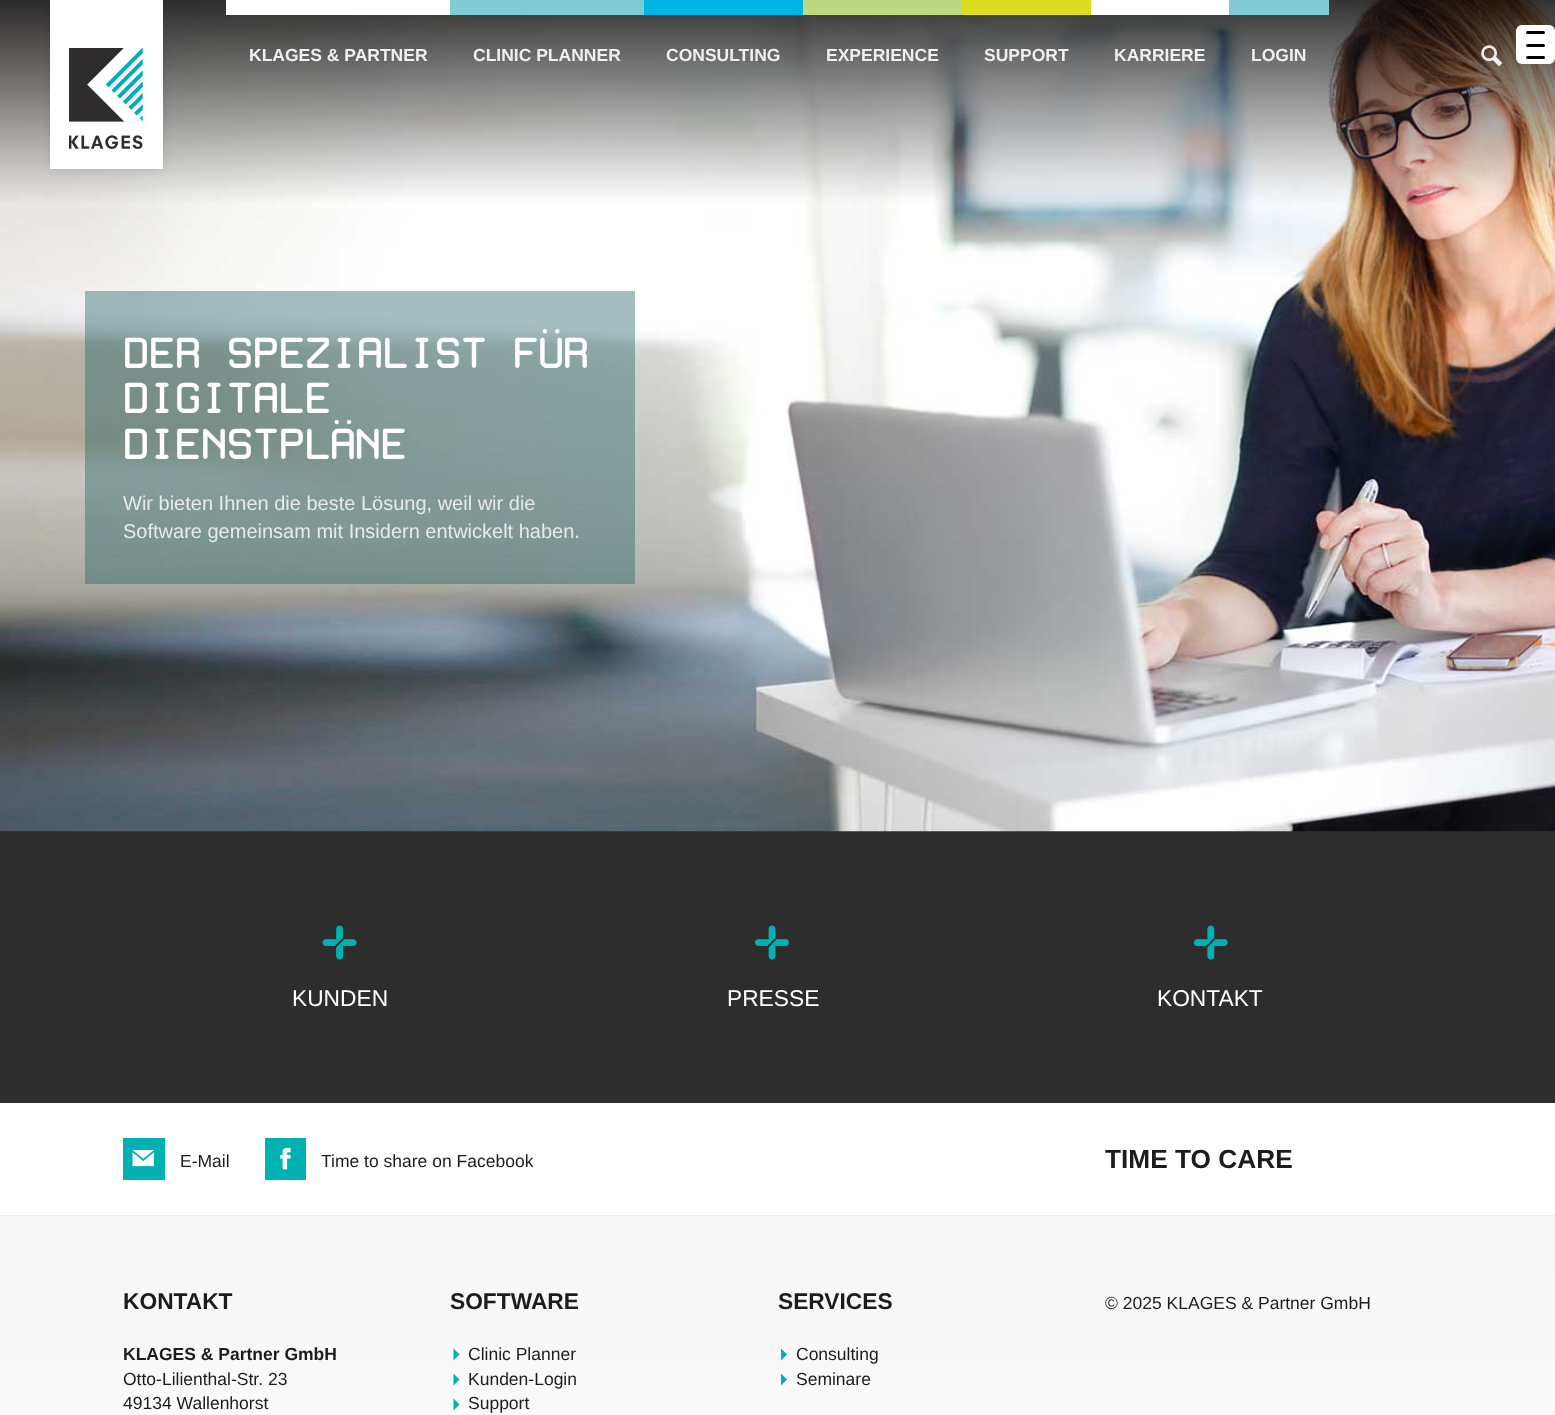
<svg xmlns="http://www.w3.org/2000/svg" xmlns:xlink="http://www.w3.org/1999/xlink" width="1555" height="1415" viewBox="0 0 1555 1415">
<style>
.cls-1{font:bold 17.5px Liberation Sans;fill:#efefef}
.cls-2{font:45.5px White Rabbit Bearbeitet;fill:#ffffff}
.cls-3{font:20px Liberation Sans;fill:#e6ebea}
.cls-4{font:22.75px Liberation Sans;fill:#ffffff}
.cls-5{font:17.5px Liberation Sans;fill:#1c1c1c}
.cls-6{font:bold 26.25px Liberation Sans;fill:#1c1c1c}
.cls-7{font:bold 22.75px Liberation Sans;fill:#1c1c1c}
.cls-8{font:bold 17.5px Liberation Sans;fill:#1c1c1c}
</style>
<defs>
<linearGradient id="g1" gradientUnits="userSpaceOnUse" x1="778" y1="1216" x2="778" y2="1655"><stop offset="0" stop-color="#f6f6f6"/><stop offset="1" stop-color="#ffffff"/></linearGradient>
</defs>
<rect width="100%" height="100%" fill="#ffffff"/>
<rect fill="#2d2d2d" x="0" y="831" width="1555" height="272"/>
<image xlink:href="image2.png" x="0" y="0" width="1555" height="832"/>
<rect fill="#000000" fill-opacity="0.1" filter="blur(4.5px)" x="50" y="0" width="113" height="169"/>
<rect fill="#ffffff" x="50" y="0" width="113" height="169"/>
<image xlink:href="image0.png" x="69" y="48" width="74" height="101"/>
<rect fill="#ffffff" x="226" y="0" width="224" height="15"/>
<rect fill="#81cbd4" x="450" y="0" width="194" height="15"/>
<rect fill="#00b5e1" x="644" y="0" width="159" height="15"/>
<rect fill="#bfd783" x="803" y="0" width="158" height="15"/>
<rect fill="#dddd21" x="961" y="0" width="130" height="15"/>
<rect fill="#ffffff" x="1091" y="0" width="138" height="15"/>
<rect fill="#81cbd4" x="1229" y="0" width="100" height="15"/>
<image xlink:href="image1.png" x="1481" y="45" width="22" height="22"/>
<rect fill="#ffffff" x="1516" y="25" width="39" height="39" rx="6"/>
<rect fill="#000000" x="1526" y="44" width="19" height="3" rx="1.5"/>
<rect fill="#000000" x="1526" y="31" width="19" height="3" rx="1.5"/>
<rect fill="#000000" x="1526" y="56" width="19" height="3" rx="1.5"/>
<rect fill="#1d6062" fill-opacity="0.4" x="85" y="291" width="550" height="293"/>
<image xlink:href="image3.png" x="322" y="925" width="35" height="35"/>
<image xlink:href="image4.png" x="755" y="925" width="34" height="35"/>
<image xlink:href="image5.png" x="1193" y="925" width="35" height="35"/>
<rect fill="#00b1b2" x="123" y="1138" width="42" height="42"/>
<image xlink:href="image6.png" x="132" y="1150" width="22" height="17"/>
<rect fill="#00b1b2" x="265" y="1138" width="41" height="42"/>
<image xlink:href="image7.png" x="280" y="1147" width="11" height="23"/>
<rect fill="url(#g1)" x="0" y="1216" width="1555" height="199"/>
<rect fill="#efefef" x="0" y="1215" width="1555" height="1"/>
<path fill="#00b1b2" d="M453.5 1348.5V1360.5L459.5 1354.5Z"/>
<path fill="#00b1b2" d="M453.5 1373.5V1385.5L459.5 1379.5Z"/>
<path fill="#00b1b2" d="M453.5 1398.5V1410.5L459.5 1404.5Z"/>
<path fill="#00b1b2" d="M781 1348.5V1360.5L787 1354.5Z"/>
<path fill="#00b1b2" d="M781 1373.5V1385.5L787 1379.5Z"/>
<text class="cls-1" x="249" y="61">KLAGES &amp; PARTNER</text>
<text class="cls-1" x="473" y="61">CLINIC PLANNER</text>
<text class="cls-1" x="666" y="61">CONSULTING</text>
<text class="cls-1" x="826" y="61">EXPERIENCE</text>
<text class="cls-1" x="984" y="61">SUPPORT</text>
<text class="cls-1" x="1114" y="61">KARRIERE</text>
<text class="cls-1" x="1251" y="61">LOGIN</text>
<text class="cls-2"><tspan x="123" y="368">DER SPEZIALIST FÜR</tspan><tspan x="123" y="413">DIGITALE</tspan><tspan x="123" y="459">DIENSTPLÄNE</tspan></text>
<text class="cls-3"><tspan x="123" y="510">Wir bieten Ihnen die beste Lösung, weil wir die</tspan><tspan x="123" y="538">Software gemeinsam mit Insidern entwickelt haben.</tspan></text>
<text class="cls-4" x="292" y="1006">KUNDEN</text>
<text class="cls-4" x="727" y="1006">PRESSE</text>
<text class="cls-4" x="1157" y="1006">KONTAKT</text>
<text class="cls-5" x="180" y="1167">E-Mail</text>
<text class="cls-5" x="321" y="1167">Time to share on Facebook</text>
<text class="cls-6" x="1105" y="1168">TIME TO CARE</text>
<text class="cls-7" x="123" y="1309">KONTAKT</text>
<text class="cls-8" x="123" y="1360">KLAGES &amp; Partner GmbH</text>
<text class="cls-5"><tspan x="123" y="1385">Otto-Lilienthal-Str. 23</tspan><tspan x="123" y="1409">49134 Wallenhorst</tspan></text>
<text class="cls-7" x="450" y="1309">SOFTWARE</text>
<text class="cls-5"><tspan x="468" y="1360">Clinic Planner</tspan><tspan x="468" y="1385">Kunden-Login</tspan><tspan x="468" y="1409">Support</tspan></text>
<text class="cls-7" x="778" y="1309">SERVICES</text>
<text class="cls-5"><tspan x="796" y="1360">Consulting</tspan><tspan x="796" y="1385">Seminare</tspan></text>
<text class="cls-5" x="1105" y="1309">© 2025 KLAGES &amp; Partner GmbH</text>
</svg>
